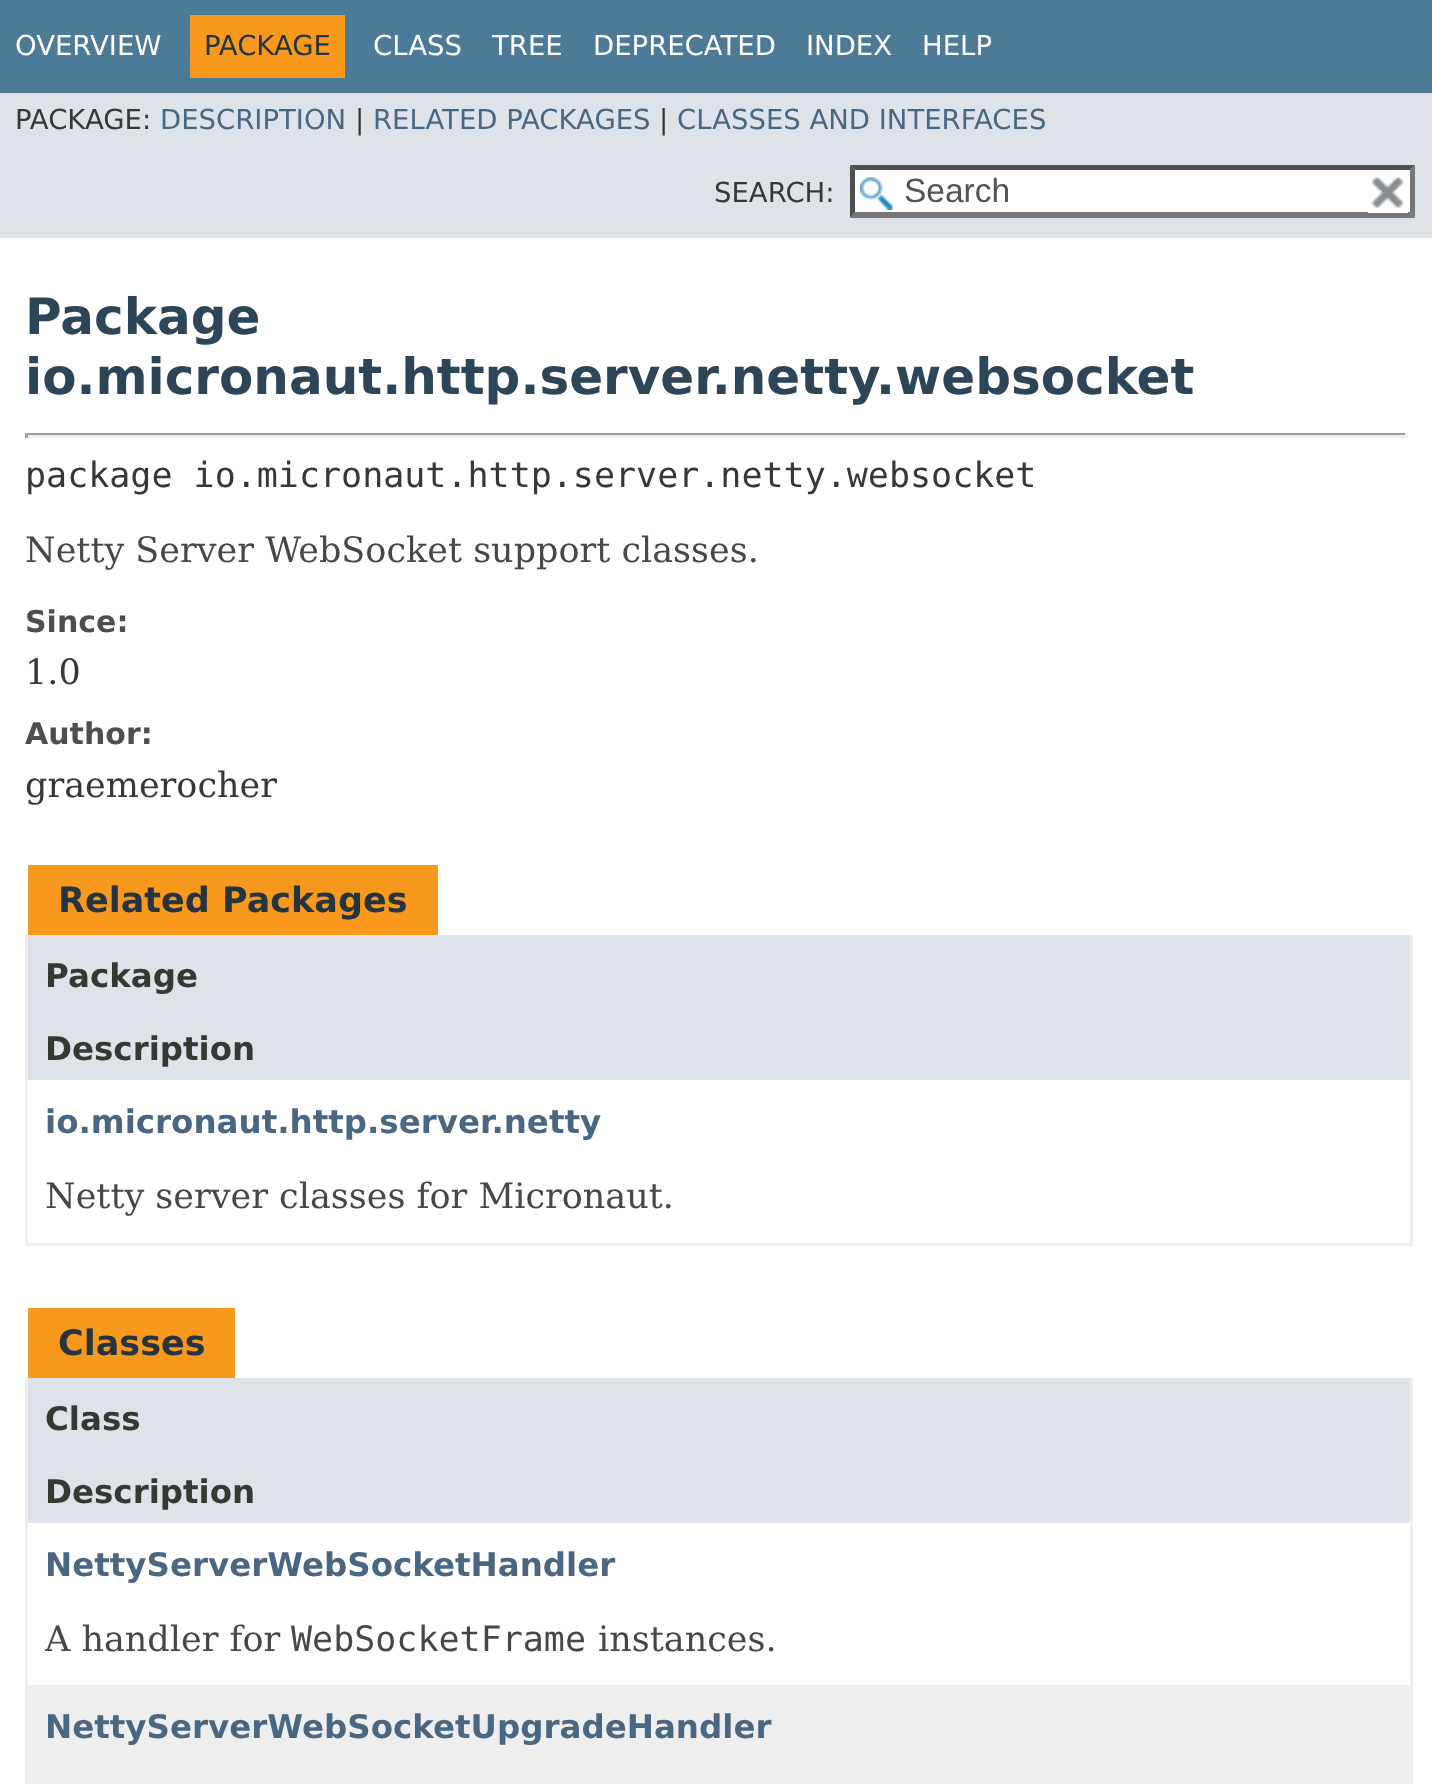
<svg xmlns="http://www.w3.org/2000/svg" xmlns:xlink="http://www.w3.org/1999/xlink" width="1432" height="1784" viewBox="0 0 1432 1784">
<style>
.cls-1{font:27.5px DejaVu Sans;fill:#ffffff}
.cls-2{font:27.5px DejaVu Sans;fill:#253441}
.cls-3{font:27.5px DejaVu Sans;fill:#353833}
.cls-4{font:27.5px DejaVu Sans;fill:#4a6782}
.cls-5{font:33.5px Liberation Sans;fill:#545454}
.cls-6{font:bold 50px DejaVu Sans;fill:#2c4557}
.cls-7{font:35px DejaVu Sans Mono;fill:#353833}
.cls-8{font:35px DejaVu Serif;fill:#474747}
.cls-9{font:bold 30px DejaVu Sans;fill:#4e4e4e}
.cls-10{font:35px DejaVu Serif;fill:#353833}
.cls-11{font:bold 35px DejaVu Sans;fill:#253441}
.cls-12{font:bold 32.5px DejaVu Sans;fill:#353833}
.cls-13{font:bold 32.5px DejaVu Sans;fill:#4a6782}
.cls-14{font:35px DejaVu Sans Mono;fill:#474747}
</style>
<rect width="100%" height="100%" fill="#ffffff"/>
<rect fill="#4d7a97" x="0" y="0" width="1432" height="93"/>
<rect fill="#f8981d" x="190" y="15" width="155" height="63"/>
<rect fill="#dee3e9" x="0" y="93" width="1432" height="145"/>
<rect fill="#ffffff" x="850" y="165" width="565" height="53"/>
<image xlink:href="image0.png" x="860" y="177" width="33" height="33"/>
<path fill="#4f4f4f" d="M850 165H1415L1410 170H855Z"/>
<path fill="#767676" d="M1415 165V218L1410 212V170Z"/>
<path fill="#767676" d="M1415 218H850L855 212H1410Z"/>
<path fill="#4f4f4f" d="M850 218V165L855 170V212Z"/>
<rect fill="#ffffff" x="1368" y="212" width="40" height="1"/>
<image xlink:href="image1.png" x="1371" y="177" width="33" height="31"/>
<rect fill="#9f9f9f" x="25" y="433" width="1383" height="2"/>
<rect fill="#eeeeee" x="1405" y="433" width="3" height="5"/>
<rect fill="#eeeeee" x="25" y="435" width="1383" height="3"/>
<rect fill="#9f9f9f" x="25" y="433" width="3" height="5"/>
<rect fill="#f8981d" x="28" y="865" width="410" height="70"/>
<rect fill="#eeeeee" x="1410" y="935" width="3" height="310"/>
<rect fill="#eeeeee" x="25" y="1243" width="1388" height="3"/>
<rect fill="#eeeeee" x="25" y="935" width="3" height="310"/>
<rect fill="#dee3e9" x="28" y="935" width="1382" height="145"/>
<rect fill="#f8981d" x="28" y="1308" width="207" height="70"/>
<rect fill="#eeeeee" x="1410" y="1378" width="3" height="406"/>
<rect fill="#eeeeee" x="25" y="1378" width="3" height="406"/>
<rect fill="#dee3e9" x="28" y="1378" width="1382" height="145"/>
<rect fill="#eeeeef" x="28" y="1685" width="1382" height="99"/>
<text class="cls-1" x="15" y="55">OVERVIEW</text>
<text class="cls-2" x="204" y="55">PACKAGE</text>
<text class="cls-1" x="373" y="55">CLASS</text>
<text class="cls-1" x="492" y="55">TREE</text>
<text class="cls-1" x="593" y="55">DEPRECATED</text>
<text class="cls-1" x="806" y="55">INDEX</text>
<text class="cls-1" x="922" y="55">HELP</text>
<text class="cls-3" x="15" y="129">PACKAGE:</text>
<text class="cls-4" x="160" y="129">DESCRIPTION</text>
<text class="cls-3" x="355" y="129">|</text>
<text class="cls-4" x="373" y="129">RELATED PACKAGES</text>
<text class="cls-3" x="659" y="129">|</text>
<text class="cls-4" x="677" y="129">CLASSES AND INTERFACES</text>
<text class="cls-3" x="714" y="202">SEARCH:</text>
<text class="cls-5" x="904" y="202">Search</text>
<text class="cls-6"><tspan x="25" y="334">Package</tspan><tspan x="25" y="394">io.micronaut.http.server.netty.websocket</tspan></text>
<text class="cls-7" x="25" y="487">package io.micronaut.http.server.netty.websocket</text>
<text class="cls-8" x="25" y="562">Netty Server WebSocket support classes.</text>
<text class="cls-9" x="25" y="632">Since:</text>
<text class="cls-10" x="25" y="684">1.0</text>
<text class="cls-9" x="25" y="744">Author:</text>
<text class="cls-10" x="25" y="797">graemerocher</text>
<text class="cls-11" x="58" y="912">Related Packages</text>
<text class="cls-12" x="45" y="987">Package</text>
<text class="cls-12" x="45" y="1060">Description</text>
<text class="cls-13" x="45" y="1133">io.micronaut.http.server.netty</text>
<text class="cls-8" x="45" y="1208">Netty server classes for Micronaut.</text>
<text class="cls-11" x="58" y="1355">Classes</text>
<text class="cls-12" x="45" y="1430">Class</text>
<text class="cls-12" x="45" y="1503">Description</text>
<text class="cls-13" x="45" y="1576">NettyServerWebSocketHandler</text>
<text class="cls-8" x="45" y="1651">A handler for</text>
<text class="cls-14" x="291" y="1651">WebSocketFrame</text>
<text class="cls-8" x="598" y="1651">instances.</text>
<text class="cls-13" x="45" y="1738">NettyServerWebSocketUpgradeHandler</text>
</svg>
